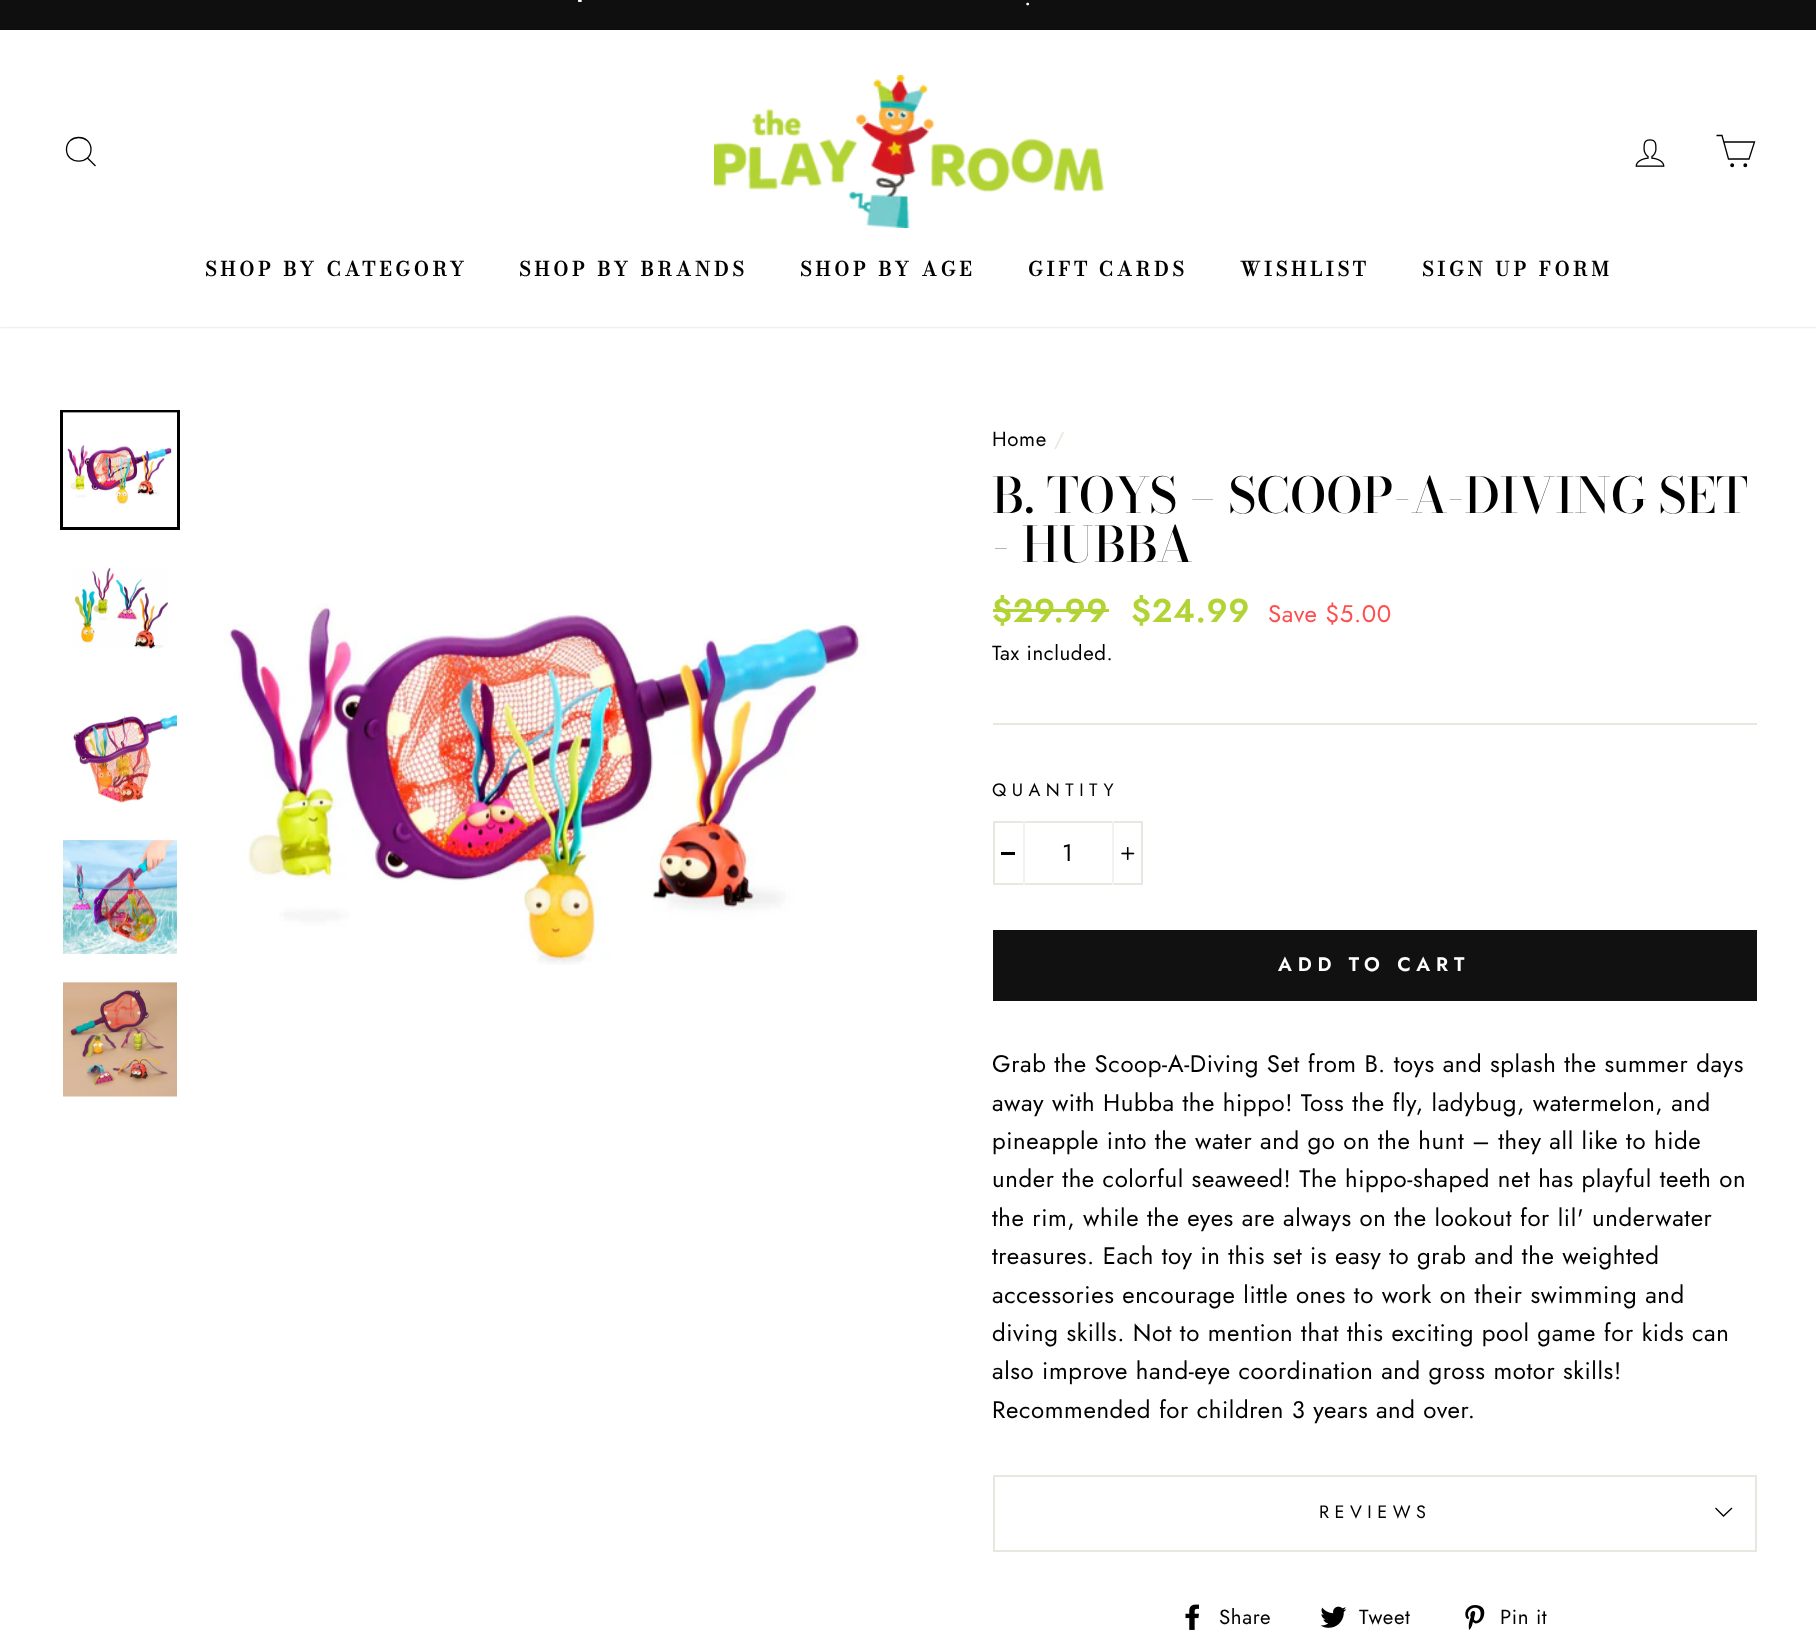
<svg xmlns="http://www.w3.org/2000/svg" xmlns:xlink="http://www.w3.org/1999/xlink" width="1816" height="1634" viewBox="0 0 1816 1634">
<style>
.cls-1{font:600 17px Jost;letter-spacing:3px;fill:#ffffff}
.cls-2{font:bold 19.5px Bodoni Moda;letter-spacing:3.9px;fill:#000000}
.cls-3{font:20.5px Jost;letter-spacing:0.6px;fill:#000000}
.cls-4{font:20.5px Jost;letter-spacing:0.6px;fill:#e8e8e1}
.cls-5{font:500 49px Bodoni Moda;fill:#000000}
.cls-6{font:600 33px Jost;letter-spacing:0.6px;fill:#b2d334}
.cls-7{font:24px Jost;letter-spacing:0.6px;fill:#ff4e4e}
.cls-8{font:18px Jost;letter-spacing:5.5px;fill:#000000}
.cls-9{font:24px Jost;letter-spacing:0.6px;fill:#000000}
.cls-10{font:600 19.5px Jost;letter-spacing:5.8px;fill:#ffffff}
</style>
<defs>
<clipPath id="clip1"><path d="M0 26H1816V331H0ZM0 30H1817V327H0Z" clip-rule="evenodd"/></clipPath>
</defs>
<rect width="100%" height="100%" fill="#ffffff"/>
<rect fill="#0f0f0f" x="0" y="0" width="1816" height="30"/>
<g clip-path="url(#clip1)">
<rect fill="#000000" fill-opacity="0.2" filter="blur(1px)" x="0" y="30" width="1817" height="297"/>
</g>
<path fill="none" stroke="#000000" stroke-width="1.3" d="M91 149.5C91 165 66.5 165 66.5 149.5C66.5 133.5 91 133.5 91 149.5ZM95.5 166L87.5 158"/>
<image xlink:href="image0.png" x="714" y="75" width="390" height="153"/>
<image xlink:href="image1.png" x="1635" y="139" width="30" height="28"/>
<path fill="none" stroke="#000000" stroke-width="1.3" d="M1723.5 142H1754.5L1749 159H1728.5L1722 135.5H1716.5"/>
<circle fill="#000000" stroke="#000000" stroke-width="1.3" cx="1732.2" cy="165.3" r="1.3"/>
<circle fill="#000000" stroke="#000000" stroke-width="1.3" cx="1745.3" cy="165.3" r="1.3"/>
<rect fill="none" stroke="#000000" stroke-width="3" x="61.5" y="411.5" width="117" height="117"/>
<image xlink:href="image2.png" x="63" y="412" width="114" height="92"/>
<image xlink:href="image3.png" x="73" y="567" width="95" height="82"/>
<image xlink:href="image4.png" x="73" y="715" width="104" height="89"/>
<image xlink:href="image5.png" x="63" y="840" width="114" height="114"/>
<image xlink:href="image6.png" x="63" y="982" width="114" height="115"/>
<image xlink:href="image7.png" x="224" y="603" width="643" height="362"/>
<rect fill="#b2d334" x="993" y="609" width="116" height="3"/>
<rect fill="#e8e8e1" x="993" y="723" width="764" height="2"/>
<rect fill="none" stroke="#e8e8e1" stroke-width="2" x="994" y="822" width="148" height="62"/>
<rect fill="#f2f2f2" x="1023" y="821" width="2" height="64"/>
<rect fill="#000000" x="1001" y="852" width="14" height="3"/>
<rect fill="#f2f2f2" x="1112" y="821" width="2" height="64"/>
<image xlink:href="image8.png" x="1121" y="847" width="14" height="13"/>
<rect fill="#111111" x="993" y="930" width="764" height="71"/>
<rect fill="#e8e8e1" x="993" y="1550" width="764" height="2"/>
<rect fill="#e8e8e1" x="993" y="1475" width="764" height="2"/>
<rect fill="#e8e8e1" x="1755" y="1475" width="2" height="75"/>
<rect fill="#e8e8e1" x="993" y="1475" width="2" height="75"/>
<path fill="none" stroke="#000000" stroke-width="1.3" d="M1715.5 1508L1723.5 1516L1732 1508"/>
<image xlink:href="image9.png" x="1185" y="1604" width="14" height="26"/>
<image xlink:href="image10.png" x="1320" y="1606" width="27" height="22"/>
<image xlink:href="image11.png" x="1465" y="1605" width="20" height="25"/>
<text class="cls-1" x="578" y="5">-</text>
<text class="cls-1" x="1025" y="5">.</text>
<text class="cls-2" x="205" y="276">SHOP BY CATEGORY</text>
<text class="cls-2" x="519" y="276">SHOP BY BRANDS</text>
<text class="cls-2" x="800" y="276">SHOP BY AGE</text>
<text class="cls-2" x="1028" y="276" word-spacing="-1">GIFT CARDS</text>
<text class="cls-2" x="1240" y="276">WISHLIST</text>
<text class="cls-2" x="1422" y="276">SIGN UP FORM</text>
<text class="cls-3" x="992" y="446">Home</text>
<text class="cls-4" x="1054" y="446">/</text>
<text class="cls-5"><tspan x="992" y="513">B. TOYS – SCOOP-A-DIVING SET</tspan><tspan x="992" y="562">- HUBBA</tspan></text>
<text class="cls-6" x="992" y="622">$29.99</text>
<text class="cls-6" x="1131" y="622">$24.99</text>
<text class="cls-7" x="1268" y="622">Save $5.00</text>
<text class="cls-3" x="992" y="660">Tax included.</text>
<text class="cls-8" x="992" y="796">QUANTITY</text>
<text class="cls-9" x="1062" y="861">1</text>
<text class="cls-10" x="1278" y="971">ADD TO CART</text>
<text class="cls-9"><tspan x="992" y="1072">Grab the Scoop-A-Diving Set from B. toys and splash the summer days</tspan><tspan x="992" y="1111">away with Hubba the hippo! Toss the fly, ladybug, watermelon, and</tspan><tspan x="992" y="1149">pineapple into the water and go on the hunt – they all like to hide</tspan><tspan x="992" y="1187">under the colorful seaweed! The hippo-shaped net has playful teeth on</tspan><tspan x="992" y="1226">the rim, while the eyes are always on the lookout for lil' underwater</tspan><tspan x="992" y="1264">treasures. Each toy in this set is easy to grab and the weighted</tspan><tspan x="992" y="1303">accessories encourage little ones to work on their swimming and</tspan><tspan x="992" y="1341">diving skills. Not to mention that this exciting pool game for kids can</tspan><tspan x="992" y="1379">also improve hand-eye coordination and gross motor skills!</tspan><tspan x="992" y="1418">Recommended for children 3 years and over.</tspan></text>
<text class="cls-8" x="1319" y="1518">REVIEWS</text>
<text class="cls-3" x="1219" y="1624">Share</text>
<text class="cls-3" x="1359" y="1624">Tweet</text>
<text class="cls-3" x="1500" y="1624">Pin it</text>
</svg>
